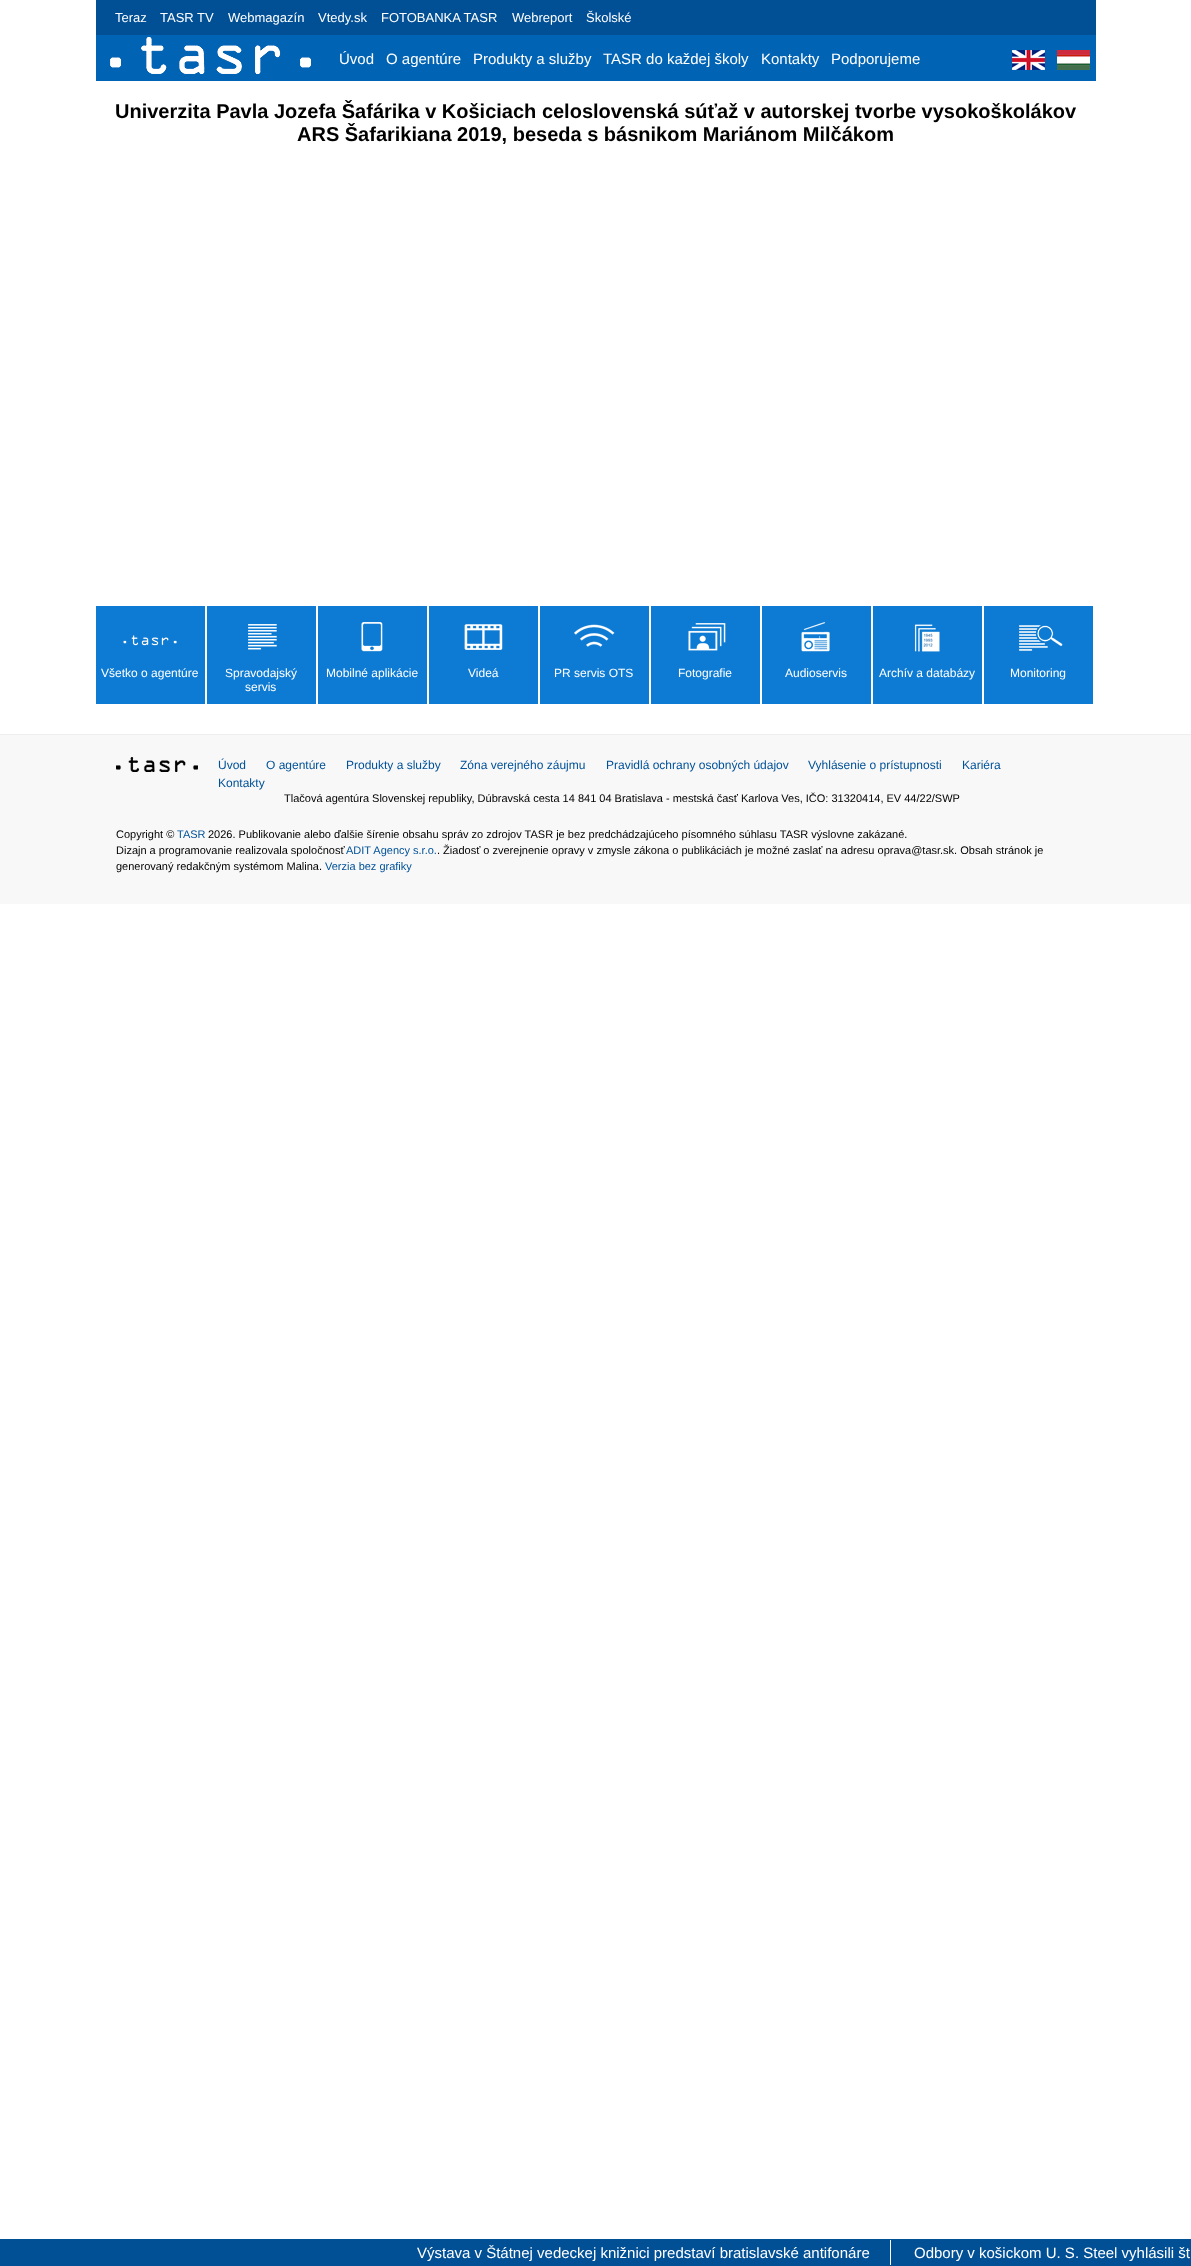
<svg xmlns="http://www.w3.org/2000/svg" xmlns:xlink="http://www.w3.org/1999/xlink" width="1191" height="2266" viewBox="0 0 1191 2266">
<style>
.cls-1{font:13px Liberation Sans;fill:#ffffff}
.cls-2{font:15px Liberation Sans;fill:#ffffff}
.cls-3{font:bold 20px Liberation Sans;fill:#000000}
.cls-4{font:12px Liberation Sans;fill:#ffffff}
.cls-5{font:12px Liberation Sans;fill:#015198}
.cls-6{font:11px Liberation Sans;fill:#000000}
.cls-7{font:11px Liberation Sans;fill:#015198}
</style>
<rect width="100%" height="100%" fill="#ffffff"/>
<rect fill="#014f95" x="96" y="0" width="1000" height="35"/>
<rect fill="#0063b3" x="96" y="35" width="1000" height="46"/>
<image xlink:href="image0.png" x="110" y="37" width="201" height="37"/>
<image xlink:href="image1.png" x="1012" y="50" width="33" height="20"/>
<image xlink:href="image2.png" x="1057" y="50" width="33" height="20"/>
<rect fill="#0d7bd3" x="96" y="606" width="109" height="98"/>
<image xlink:href="image3.png" x="123" y="635" width="54" height="11"/>
<rect fill="#0d7bd3" x="207" y="606" width="109" height="98"/>
<image xlink:href="image4.png" x="248" y="624" width="29" height="26"/>
<rect fill="#0d7bd3" x="318" y="606" width="109" height="98"/>
<image xlink:href="image5.png" x="361" y="622" width="22" height="30"/>
<rect fill="#0d7bd3" x="429" y="606" width="109" height="98"/>
<image xlink:href="image6.png" x="464" y="624" width="39" height="26"/>
<rect fill="#0d7bd3" x="540" y="606" width="109" height="98"/>
<image xlink:href="image7.png" x="574" y="624" width="41" height="23"/>
<rect fill="#0d7bd3" x="651" y="606" width="109" height="98"/>
<image xlink:href="image8.png" x="688" y="623" width="38" height="28"/>
<rect fill="#0d7bd3" x="762" y="606" width="109" height="98"/>
<image xlink:href="image9.png" x="801" y="622" width="29" height="30"/>
<rect fill="#0d7bd3" x="873" y="606" width="109" height="98"/>
<image xlink:href="image10.png" x="914" y="624" width="26" height="28"/>
<rect fill="#0d7bd3" x="984" y="606" width="109" height="98"/>
<image xlink:href="image11.png" x="1019" y="625" width="44" height="26"/>
<rect fill="#f8f8f8" x="0" y="735" width="1191" height="169"/>
<rect fill="#eeeeee" x="0" y="734" width="1191" height="1"/>
<image xlink:href="image12.png" x="116" y="757" width="82" height="15"/>
<rect fill="#014f95" x="0" y="2239" width="1191" height="27"/>
<rect fill="#ffffff" x="890" y="2240" width="1" height="25"/>
<text class="cls-1" x="115" y="22">Teraz</text>
<text class="cls-1" x="160" y="22">TASR TV</text>
<text class="cls-1" x="228" y="22">Webmagazín</text>
<text class="cls-1" x="318" y="22">Vtedy.sk</text>
<text class="cls-1" x="381" y="22">FOTOBANKA TASR</text>
<text class="cls-1" x="512" y="22">Webreport</text>
<text class="cls-1" x="586" y="22">Školské</text>
<text class="cls-2" x="339" y="64">Úvod</text>
<text class="cls-2" x="386" y="64">O agentúre</text>
<text class="cls-2" x="473" y="64">Produkty a služby</text>
<text class="cls-2" x="603" y="64">TASR do každej školy</text>
<text class="cls-2" x="761" y="64">Kontakty</text>
<text class="cls-2" x="831" y="64">Podporujeme</text>
<text class="cls-3" x="115" y="118">Univerzita Pavla Jozefa Šafárika v Košiciach celoslovenská súťaž v autorskej tvorbe vysokoškolákov</text>
<text class="cls-3" x="297" y="141">ARS Šafarikiana 2019, beseda s básnikom Mariánom Milčákom</text>
<text class="cls-4" x="101" y="677">Všetko o agentúre</text>
<text class="cls-4" x="225" y="677">Spravodajský</text>
<text class="cls-4" x="245" y="691">servis</text>
<text class="cls-4" x="326" y="677">Mobilné aplikácie</text>
<text class="cls-4" x="468" y="677">Videá</text>
<text class="cls-4" x="554" y="677">PR servis OTS</text>
<text class="cls-4" x="678" y="677">Fotografie</text>
<text class="cls-4" x="785" y="677">Audioservis</text>
<text class="cls-4" x="879" y="677">Archív a databázy</text>
<text class="cls-4" x="1010" y="677">Monitoring</text>
<text class="cls-5" x="218" y="769">Úvod</text>
<text class="cls-5" x="266" y="769">O agentúre</text>
<text class="cls-5" x="346" y="769">Produkty a služby</text>
<text class="cls-5" x="460" y="769">Zóna verejného záujmu</text>
<text class="cls-5" x="606" y="769">Pravidlá ochrany osobných údajov</text>
<text class="cls-5" x="808" y="769">Vyhlásenie o prístupnosti</text>
<text class="cls-5" x="962" y="769">Kariéra</text>
<text class="cls-5" x="218" y="787">Kontakty</text>
<text class="cls-6" x="284" y="802">Tlačová agentúra Slovenskej republiky, Dúbravská cesta 14 841 04 Bratislava - mestská časť Karlova Ves, IČO: 31320414, EV 44/22/SWP</text>
<text class="cls-6" x="116" y="838">Copyright ©</text>
<text class="cls-7" x="177" y="838">TASR</text>
<text class="cls-6" x="208" y="838">2026. Publikovanie alebo ďalšie šírenie obsahu správ zo zdrojov TASR je bez predchádzajúceho písomného súhlasu TASR výslovne zakázané.</text>
<text class="cls-6" x="116" y="854">Dizajn a programovanie realizovala spoločnosť</text>
<text class="cls-7" x="346" y="854">ADIT Agency s.r.o.</text>
<text class="cls-6" x="437" y="854">. Žiadosť o zverejnenie opravy v zmysle zákona o publikáciách je možné zaslať na adresu oprava@tasr.sk. Obsah stránok je</text>
<text class="cls-6" x="116" y="870">generovaný redakčným systémom Malina.</text>
<text class="cls-7" x="325" y="870">Verzia bez grafiky</text>
<text class="cls-2" x="417" y="2258">Výstava v Štátnej vedeckej knižnici predstaví bratislavské antifonáre</text>
<text class="cls-2" x="914" y="2258">Odbory v košickom U. S. Steel vyhlásili št</text>
</svg>
